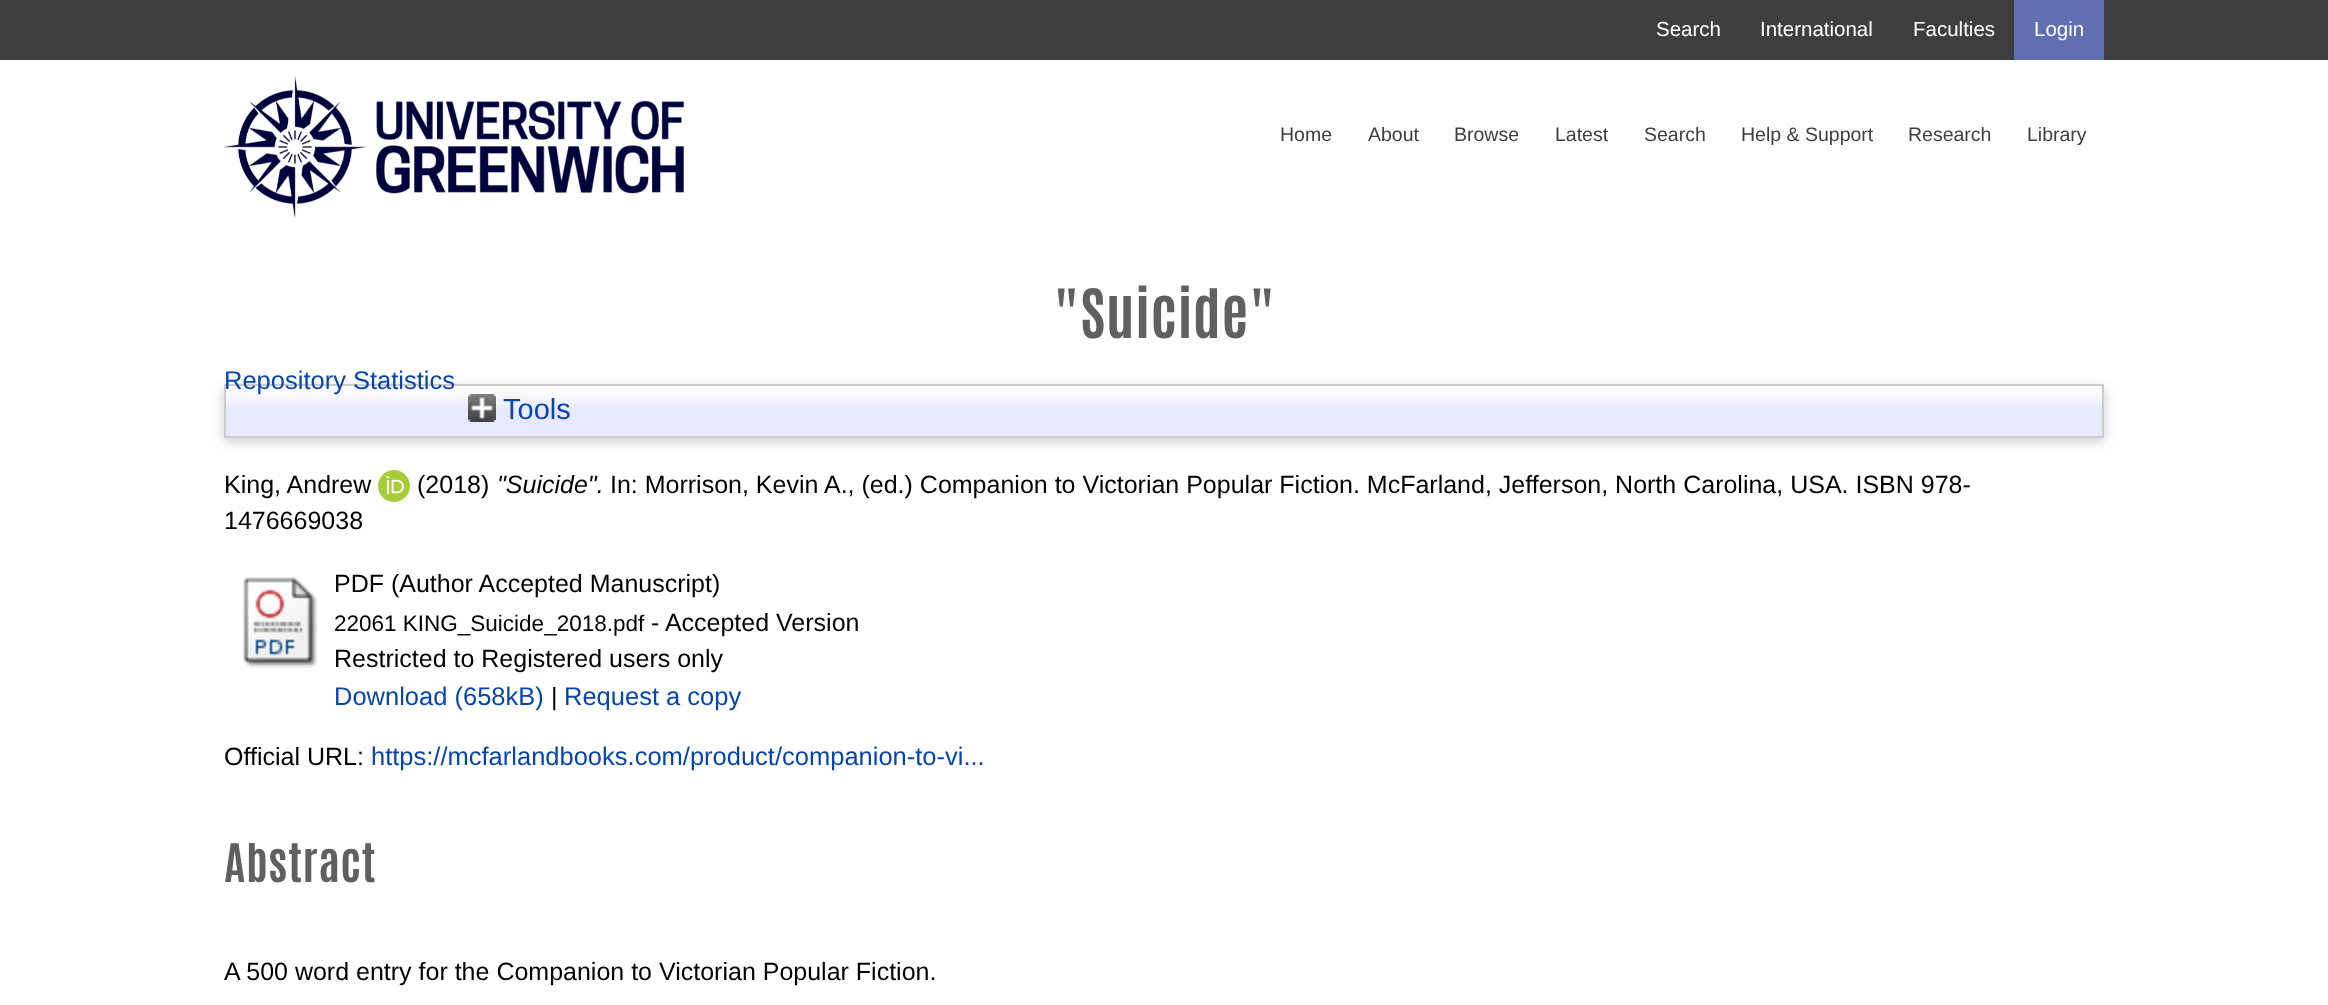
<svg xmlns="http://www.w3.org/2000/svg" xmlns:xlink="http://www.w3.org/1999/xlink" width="2328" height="1005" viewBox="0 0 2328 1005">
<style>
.cls-1{font:20.5px Liberation Sans;fill:#ffffff}
.cls-2{font:19.5px Liberation Sans;fill:#3e3e3e}
.cls-3{font:bold 57.5px Antonio;letter-spacing:0.5px;fill:#606060}
.cls-4{font:25.5px Liberation Sans;fill:#0645ad}
.cls-5{font:29px Liberation Sans;fill:#0645ad}
.cls-6{font:25px Liberation Sans;fill:#000000}
.cls-7{font:italic 25px Liberation Sans;fill:#000000}
.cls-8{font:22.5px Liberation Sans;fill:#000000}
.cls-9{font:bold 45px Antonio;letter-spacing:0.5px;fill:#606060}
</style>
<rect width="100%" height="100%" fill="#ffffff"/>
<rect fill="#3e3e3e" x="0" y="0" width="2328" height="60"/>
<rect fill="#606eb2" x="2014" y="0" width="90" height="60"/>
<image xlink:href="image0.png" x="224" y="76" width="460" height="142"/>
<rect fill="#646464" fill-opacity="0.3" filter="blur(6px)" x="224" y="388" width="1880" height="54"/>
<rect fill="#e8e8ff" x="226" y="387" width="1876" height="49"/>
<image xlink:href="image1.png" x="226" y="386" width="1876" height="22"/>
<rect fill="none" stroke="#cccccc" stroke-width="2" x="225" y="385" width="1878" height="52"/>
<image xlink:href="image2.png" x="468" y="394" width="28" height="28"/>
<image xlink:href="image3.png" x="378" y="470" width="32" height="32"/>
<image xlink:href="image4.png" x="243" y="577" width="75" height="91"/>
<text class="cls-1" x="1656" y="36">Search</text>
<text class="cls-1" x="1760" y="36">International</text>
<text class="cls-1" x="1913" y="36">Faculties</text>
<text class="cls-1" x="2034" y="36">Login</text>
<text class="cls-2" x="1280" y="141">Home</text>
<text class="cls-2" x="1368" y="141">About</text>
<text class="cls-2" x="1454" y="141">Browse</text>
<text class="cls-2" x="1555" y="141">Latest</text>
<text class="cls-2" x="1644" y="141">Search</text>
<text class="cls-2" x="1741" y="141">Help &amp; Support</text>
<text class="cls-2" x="1908" y="141">Research</text>
<text class="cls-2" x="2027" y="141">Library</text>
<text class="cls-3" x="1053" y="338">"Suicide"</text>
<text class="cls-4" x="224" y="389">Repository Statistics</text>
<text class="cls-5" x="503" y="419">Tools</text>
<text class="cls-6" x="224" y="493">King, Andrew</text>
<text class="cls-6" x="417" y="493">(2018)</text>
<text class="cls-7" x="497" y="493">"Suicide".</text>
<text class="cls-6" x="610" y="493">In: Morrison, Kevin A., (ed.) Companion to Victorian Popular Fiction. McFarland, Jefferson, North Carolina, USA. ISBN 978-</text>
<text class="cls-6" x="224" y="529">1476669038</text>
<text class="cls-6" x="334" y="592">PDF (Author Accepted Manuscript)</text>
<text class="cls-8" x="334" y="631">22061 KING_Suicide_2018.pdf</text>
<text class="cls-6" x="651" y="631">- Accepted Version</text>
<text class="cls-6" x="334" y="667">Restricted to Registered users only</text>
<text class="cls-4" x="334" y="705">Download (658kB)</text>
<text class="cls-6" x="551" y="705">|</text>
<text class="cls-4" x="564" y="705">Request a copy</text>
<text class="cls-6" x="224" y="765">Official URL:</text>
<text class="cls-4" x="371" y="765">https://mcfarlandbooks.com/product/companion-to-vi...</text>
<text class="cls-9" x="224" y="882">Abstract</text>
<text class="cls-6" x="224" y="980">A 500 word entry for the Companion to Victorian Popular Fiction.</text>
</svg>
